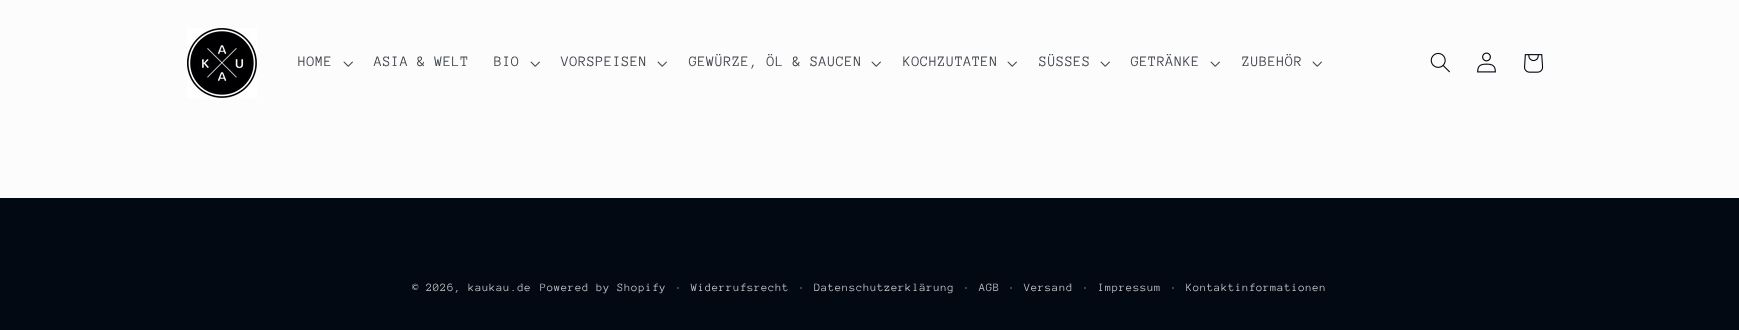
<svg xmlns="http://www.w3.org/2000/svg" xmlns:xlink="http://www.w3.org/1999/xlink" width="1739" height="330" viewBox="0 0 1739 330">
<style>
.cls-1{font:14.75px Anonymous Pro;letter-spacing:0.6px;fill:#41464d}
.cls-2{font:11.5px Anonymous Pro;letter-spacing:0.75px;fill:#bebfc2}
.cls-3{font:13px Anonymous Pro;letter-spacing:0.75px;fill:#bebfc2}
</style>
<rect width="100%" height="100%" fill="#fcfcfc"/>
<image xlink:href="image0.png" x="187" y="28" width="70" height="70"/>
<image xlink:href="image1.png" x="343" y="61" width="10" height="6"/>
<image xlink:href="image1.png" x="530" y="61" width="10" height="6"/>
<image xlink:href="image1.png" x="657" y="61" width="10" height="6"/>
<image xlink:href="image1.png" x="871" y="61" width="10" height="6"/>
<image xlink:href="image1.png" x="1007" y="61" width="10" height="6"/>
<image xlink:href="image1.png" x="1100" y="61" width="10" height="6"/>
<image xlink:href="image1.png" x="1210" y="61" width="10" height="6"/>
<image xlink:href="image1.png" x="1312" y="61" width="10" height="6"/>
<image xlink:href="image2.png" x="1430" y="52" width="20" height="21"/>
<image xlink:href="image3.png" x="1477" y="52" width="19" height="21"/>
<image xlink:href="image4.png" x="1524" y="54" width="20" height="19"/>
<rect fill="#020912" x="0" y="198" width="1739" height="132"/>
<text class="cls-1" x="298" y="66">HOME</text>
<text class="cls-1" x="374" y="66">ASIA &amp; WELT</text>
<text class="cls-1" x="494" y="66">BIO</text>
<text class="cls-1" x="561" y="66">VORSPEISEN</text>
<text class="cls-1" x="689" y="66">GEWÜRZE, ÖL &amp; SAUCEN</text>
<text class="cls-1" x="903" y="66">KOCHZUTATEN</text>
<text class="cls-1" x="1039" y="66">SÜSSES</text>
<text class="cls-1" x="1131" y="66">GETRÄNKE</text>
<text class="cls-1" x="1242" y="66">ZUBEHÖR</text>
<text class="cls-2" x="412" y="291">© 2026, kaukau.de</text>
<text class="cls-2" x="540" y="291">Powered by Shopify</text>
<text class="cls-3" x="675" y="291">·</text>
<text class="cls-2" x="691" y="291">Widerrufsrecht</text>
<text class="cls-3" x="798" y="291">·</text>
<text class="cls-2" x="814" y="291">Datenschutzerklärung</text>
<text class="cls-3" x="963" y="291">·</text>
<text class="cls-2" x="979" y="291">AGB</text>
<text class="cls-3" x="1008" y="291">·</text>
<text class="cls-2" x="1024" y="291">Versand</text>
<text class="cls-3" x="1082" y="291">·</text>
<text class="cls-2" x="1098" y="291">Impressum</text>
<text class="cls-3" x="1170" y="291">·</text>
<text class="cls-2" x="1186" y="291">Kontaktinformationen</text>
</svg>
